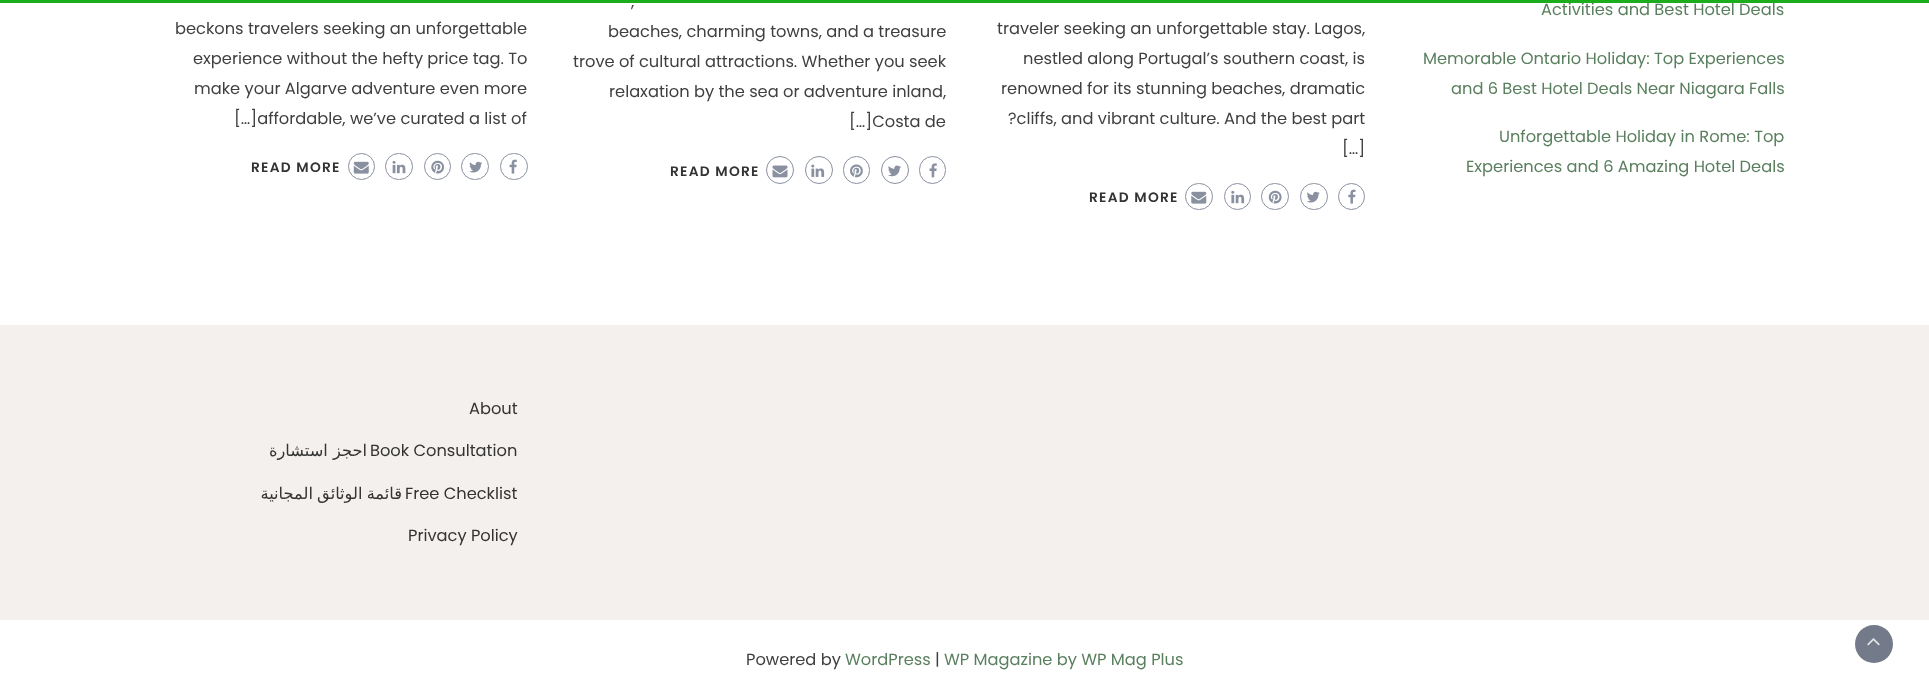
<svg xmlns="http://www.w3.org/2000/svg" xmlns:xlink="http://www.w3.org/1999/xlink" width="1929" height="700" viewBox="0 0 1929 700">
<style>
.cls-1{font:16.25px Poppins;fill:#3f3f3f}
.cls-2{font:600 13.75px Poppins;letter-spacing:1.25px;fill:#333333}
.cls-3{font:16.25px Poppins;fill:#5a7f5e}
.cls-4{font:16.25px Poppins;fill:#333333}
.cls-5{font:16.25px DejaVu Sans;direction:rtl;fill:#333333}
</style>
<rect width="100%" height="100%" fill="#ffffff"/>
<circle fill="none" stroke="#8990a0" cx="361.5" cy="166.5" r="13"/>
<image xlink:href="image0.png" x="353" y="161" width="16" height="13"/>
<rect fill="none" stroke="#8990a0" x="385.5" y="153.5" width="27" height="26" rx="13"/>
<image xlink:href="image1.png" x="392" y="160" width="14" height="14"/>
<circle fill="none" stroke="#8990a0" cx="437.5" cy="166.5" r="13"/>
<image xlink:href="image2.png" x="431" y="160" width="14" height="14"/>
<rect fill="none" stroke="#8990a0" x="461.5" y="153.5" width="27" height="26" rx="13"/>
<image xlink:href="image3.png" x="469" y="161" width="14" height="12"/>
<rect fill="none" stroke="#8990a0" x="500.5" y="153.5" width="27" height="26" rx="13"/>
<image xlink:href="image4.png" x="509" y="159" width="8" height="15"/>
<circle fill="none" stroke="#8990a0" cx="780" cy="170" r="13.5"/>
<image xlink:href="image5.png" x="772" y="165" width="16" height="13"/>
<circle fill="none" stroke="#8990a0" cx="819" cy="170" r="13.5"/>
<image xlink:href="image6.png" x="811" y="164" width="14" height="13"/>
<rect fill="none" stroke="#8990a0" x="843.5" y="156.5" width="26" height="27" rx="13"/>
<image xlink:href="image7.png" x="850" y="164" width="13" height="14"/>
<circle fill="none" stroke="#8990a0" cx="895" cy="170" r="13.5"/>
<image xlink:href="image8.png" x="888" y="165" width="13" height="12"/>
<rect fill="none" stroke="#8990a0" x="919.5" y="156.5" width="26" height="27" rx="13"/>
<image xlink:href="image9.png" x="929" y="163" width="8" height="15"/>
<rect fill="none" stroke="#8990a0" x="1185.5" y="183.5" width="27" height="26" rx="13"/>
<image xlink:href="image10.png" x="1191" y="191" width="16" height="13"/>
<circle fill="none" stroke="#8990a0" cx="1237.5" cy="196.5" r="13"/>
<image xlink:href="image11.png" x="1231" y="190" width="14" height="14"/>
<rect fill="none" stroke="#8990a0" x="1261.5" y="183.5" width="27" height="26" rx="13"/>
<image xlink:href="image12.png" x="1268" y="190" width="14" height="14"/>
<rect fill="none" stroke="#8990a0" x="1300.5" y="183.5" width="27" height="26" rx="13"/>
<image xlink:href="image13.png" x="1306" y="191" width="14" height="12"/>
<circle fill="none" stroke="#8990a0" cx="1351.5" cy="196.5" r="13"/>
<image xlink:href="image14.png" x="1348" y="189" width="8" height="15"/>
<rect fill="#f4f0ed" x="0" y="325" width="1929" height="295"/>
<circle fill="#737a89" cx="1874" cy="644" r="19"/>
<image xlink:href="image15.png" x="1867" y="638" width="13" height="8"/>
<text class="cls-1" x="175" y="34">beckons travelers seeking an unforgettable</text>
<text class="cls-1" x="193" y="64">experience without the hefty price tag. To</text>
<text class="cls-1" x="194" y="94">make your Algarve adventure even more</text>
<text class="cls-1" x="234" y="124">[…]affordable, we’ve curated a list of</text>
<text class="cls-2" x="251" y="172">READ MORE</text>
<text class="cls-1" x="631" y="7">,</text>
<text class="cls-1" x="608" y="37">beaches, charming towns, and a treasure</text>
<text class="cls-1" x="573" y="67">trove of cultural attractions. Whether you seek</text>
<text class="cls-1" x="609" y="97">relaxation by the sea or adventure inland,</text>
<text class="cls-1" x="849" y="127">[…]Costa de</text>
<text class="cls-2" x="670" y="176">READ MORE</text>
<text class="cls-1" x="997" y="34">traveler seeking an unforgettable stay. Lagos,</text>
<text class="cls-1" x="1023" y="64">nestled along Portugal’s southern coast, is</text>
<text class="cls-1" x="1001" y="94">renowned for its stunning beaches, dramatic</text>
<text class="cls-1" x="1008" y="124">?cliffs, and vibrant culture. And the best part</text>
<text class="cls-1" x="1342" y="154">[…]</text>
<text class="cls-2" x="1089" y="202">READ MORE</text>
<text class="cls-3" x="1541" y="15">Activities and Best Hotel Deals</text>
<rect fill="#1bad1b" x="0" y="0" width="1929" height="3"/>
<text class="cls-3" x="1423" y="64">Memorable Ontario Holiday: Top Experiences</text>
<text class="cls-3" x="1451" y="94">and 6 Best Hotel Deals Near Niagara Falls</text>
<text class="cls-3" x="1499" y="142">Unforgettable Holiday in Rome: Top</text>
<text class="cls-3" x="1466" y="172">Experiences and 6 Amazing Hotel Deals</text>
<text class="cls-4" x="469" y="414">About</text>
<text class="cls-5" x="367" y="456">احجز استشارة</text>
<text class="cls-4" x="370" y="456">Book Consultation</text>
<text class="cls-5" x="402" y="499" word-spacing="-1">قائمة الوثائق المجانية</text>
<text class="cls-4" x="405" y="499">Free Checklist</text>
<text class="cls-4" x="408" y="541">Privacy Policy</text>
<text class="cls-1" x="746" y="665">Powered by</text>
<text class="cls-3" x="845" y="665">WordPress</text>
<text class="cls-1" x="935" y="665">|</text>
<text class="cls-3" x="944" y="665">WP Magazine by WP Mag Plus</text>
</svg>
